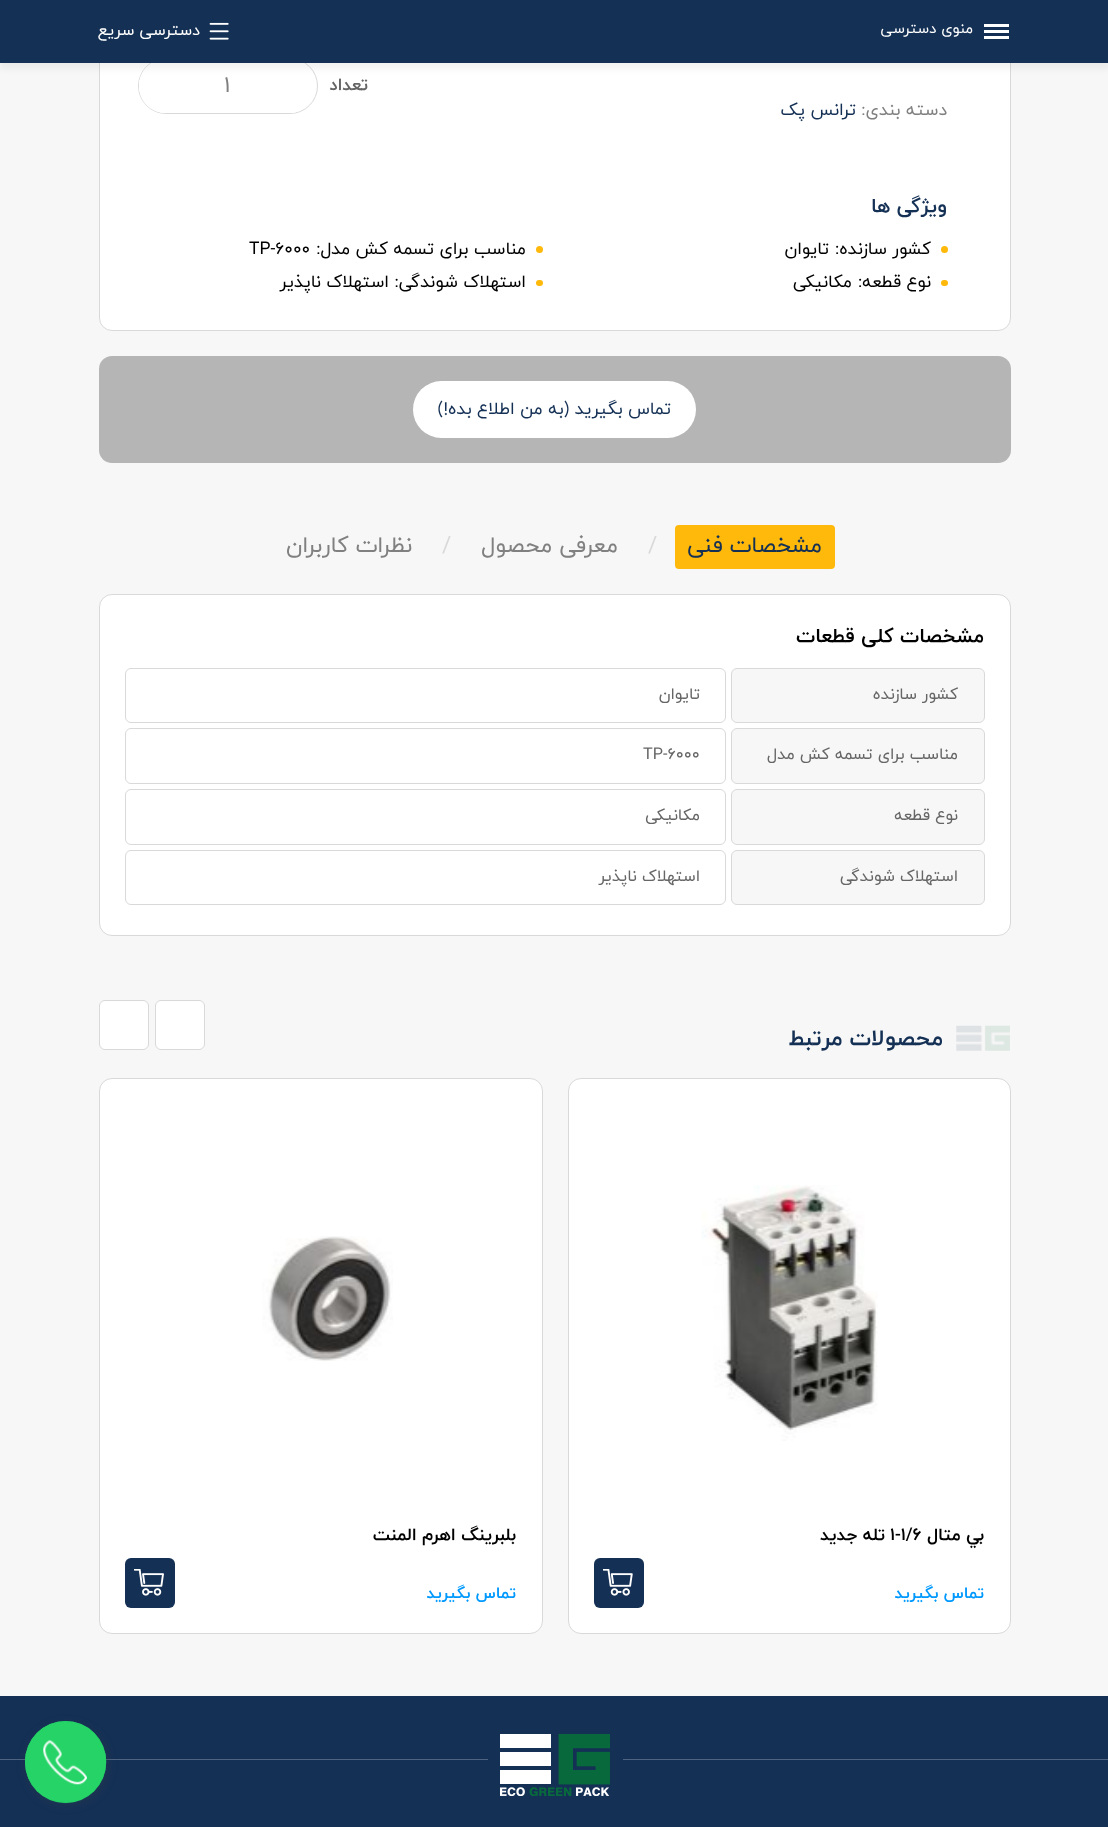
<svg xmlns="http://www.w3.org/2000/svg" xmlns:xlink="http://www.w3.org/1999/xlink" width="1108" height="1827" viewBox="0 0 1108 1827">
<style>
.cls-1{font:15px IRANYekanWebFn;direction:rtl;fill:#ffffff}
.cls-2{font:16.25px IRANYekanWebFn;direction:rtl;fill:#ffffff}
.cls-3{font:bold 17.5px IRANYekanWebFn;direction:rtl;fill:#666666}
.cls-4{font:22.5px IRANYekanWebFn;fill:#808080}
.cls-5{font:17.5px IRANYekanWebFn;direction:rtl;fill:#808080}
.cls-6{font:17.5px IRANYekanWebFn;direction:rtl;fill:#143055}
.cls-7{font:bold 20px IRANYekanWebFn;direction:rtl;fill:#143055}
.cls-8{font:17.5px IRANYekanWebFn;direction:rtl;fill:#000000}
.cls-9{font:17.5px IRANYekanWebFn;fill:#000000}
.cls-10{font:22.5px IRANYekanWebFn;direction:rtl;fill:#143055}
.cls-11{font:22.5px IRANYekanWebFn;fill:#d9d9d9}
.cls-12{font:22.5px IRANYekanWebFn;direction:rtl;fill:#808080}
.cls-13{font:bold 20px IRANYekanWebFn;direction:rtl;fill:#000000}
.cls-14{font:16.25px IRANYekanWebFn;direction:rtl;fill:#666666}
.cls-15{font:16.25px IRANYekanWebFn;fill:#666666}
.cls-16{font:bold 22.5px IRANYekanWebFn;direction:rtl;fill:#143055}
.cls-17{font:bold 17.5px IRANYekanWebFn;direction:rtl;fill:#000000}
.cls-18{font:bold 17.5px IRANYekanWebFn;fill:#000000}
.cls-19{font:bold 16.25px IRANYekanWebFn;direction:rtl;fill:#0099ff}
</style>
<rect width="100%" height="100%" fill="#f7f7f7"/>
<rect fill="#ffffff" stroke="#d9d9d9" x="99.5" y="-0.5" width="911" height="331" rx="12.5"/>
<rect fill="none" stroke="#d9d9d9" x="138.5" y="58.5" width="179" height="55" rx="27.5"/>
<rect fill="#ffffff" x="139" y="59" width="177" height="54" rx="27"/>
<path fill="#ffffff" d="M266 59H289C304 59 316 71 316 86C316 101 304 113 289 113H266Z"/>
<path fill="#ffffff" d="M166 59H189V113H166C151 113 139 101 139 86C139 71 151 59 166 59Z"/>
<rect fill="#000000" fill-opacity="0.05" filter="blur(3px)" x="0" y="6" width="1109" height="63"/>
<rect fill="#143055" x="0" y="0" width="1108" height="63"/>
<rect fill="#ffffff" x="984" y="36" width="25" height="3"/>
<rect fill="#ffffff" x="984" y="30" width="25" height="3"/>
<rect fill="#ffffff" x="984" y="24" width="25" height="3"/>
<image xlink:href="image0.png" x="209" y="22" width="20" height="18"/>
<circle fill="#ffb90b" cx="944.5" cy="249.5" r="3.5"/>
<circle fill="#ffb90b" cx="539.5" cy="249.5" r="3.5"/>
<rect fill="#ffb90b" x="941" y="280" width="7" height="6" rx="3"/>
<rect fill="#ffb90b" x="536" y="280" width="7" height="6" rx="3"/>
<rect fill="#b5b5b5" x="99" y="356" width="912" height="107" rx="13"/>
<rect fill="#ffffff" x="413" y="381" width="283" height="57" rx="28.5"/>
<rect fill="#ffb90b" x="675" y="525" width="160" height="44" rx="4"/>
<rect fill="#ffffff" stroke="#d9d9d9" x="99.5" y="594.5" width="911" height="341" rx="12.5"/>
<rect fill="#f7f7f7" stroke="#d9d9d9" x="731.5" y="668.5" width="253" height="54" rx="5.5"/>
<rect fill="none" stroke="#d9d9d9" x="125.5" y="668.5" width="600" height="54" rx="5.5"/>
<rect fill="#f7f7f7" stroke="#d9d9d9" x="731.5" y="728.5" width="253" height="55" rx="5.5"/>
<rect fill="none" stroke="#d9d9d9" x="125.5" y="728.5" width="600" height="55" rx="5.5"/>
<rect fill="#f7f7f7" stroke="#d9d9d9" x="731.5" y="789.5" width="253" height="55" rx="5.5"/>
<rect fill="none" stroke="#d9d9d9" x="125.5" y="789.5" width="600" height="55" rx="5.5"/>
<rect fill="#f7f7f7" stroke="#d9d9d9" x="731.5" y="850.5" width="253" height="54" rx="5.5"/>
<rect fill="none" stroke="#d9d9d9" x="125.5" y="850.5" width="600" height="54" rx="5.5"/>
<image xlink:href="image1.png" x="956" y="1025" width="54" height="26"/>
<rect fill="#ffffff" stroke="#d9d9d9" x="155.5" y="1000.5" width="49" height="49" rx="5.5"/>
<rect fill="#ffffff" stroke="#d9d9d9" x="99.5" y="1000.5" width="49" height="49" rx="5.5"/>
<rect fill="#ffffff" stroke="#d9d9d9" x="568.5" y="1078.5" width="442" height="555" rx="12.5"/>
<image xlink:href="image2.png" x="701" y="1185" width="177" height="256"/>
<rect fill="#143055" x="594" y="1558" width="50" height="50" rx="6"/>
<image xlink:href="image3.png" x="603" y="1569" width="30" height="27"/>
<rect fill="#ffffff" stroke="#d9d9d9" x="99.5" y="1078.5" width="443" height="555" rx="12.5"/>
<image xlink:href="image4.png" x="262" y="1236" width="131" height="125"/>
<rect fill="#143055" x="125" y="1558" width="50" height="50" rx="6"/>
<image xlink:href="image5.png" x="134" y="1569" width="30" height="27"/>
<rect fill="#143055" x="0" y="1696" width="1108" height="131"/>
<rect fill="#4f6480" x="0" y="1759" width="1108" height="1"/>
<rect fill="#143055" x="488" y="1759" width="135" height="1"/>
<image xlink:href="image6.png" x="500" y="1734" width="110" height="62"/>
<rect fill="#464646" fill-opacity="0.25" filter="blur(5px)" x="26" y="1724" width="82" height="81" rx="40.5"/>
<rect fill="#25d366" x="25" y="1721" width="81" height="82" rx="40.5"/>
<image xlink:href="image7.png" x="25" y="1721" width="82" height="83"/>
<text class="cls-1" x="973" y="33">منوی دسترسی</text>
<text class="cls-2" x="200" y="35">دسترسی سریع</text>
<text class="cls-3" x="368" y="90">تعداد</text>
<text class="cls-4" x="224" y="92">1</text>
<text class="cls-5" x="947" y="115">دسته بندی:</text>
<text class="cls-6" x="856" y="115">ترانس پک</text>
<text class="cls-7" x="947" y="212">ویژگی ها</text>
<text class="cls-8" x="931" y="254">کشور سازنده:</text>
<text class="cls-8" x="829" y="254">تایوان</text>
<text class="cls-8" x="526" y="254">مناسب برای تسمه کش مدل:</text>
<text class="cls-9" x="249" y="254">TP-6000</text>
<text class="cls-8" x="931" y="287">نوع قطعه:</text>
<text class="cls-8" x="852" y="287">مکانیکی</text>
<text class="cls-8" x="526" y="287">استهلاک شوندگی:</text>
<text class="cls-8" x="389" y="287">استهلاک ناپذیر</text>
<text class="cls-6" x="671" y="414">تماس بگیرید (به من اطلاع بده!)</text>
<text class="cls-10" x="822" y="552">مشخصات فنی</text>
<text class="cls-11" x="648" y="552">/</text>
<text class="cls-12" x="618" y="552">معرفی محصول</text>
<text class="cls-11" x="442" y="552">/</text>
<text class="cls-12" x="412" y="552">نظرات کاربران</text>
<text class="cls-13" x="984" y="642">مشخصات کلی قطعات</text>
<text class="cls-14" x="958" y="699">کشور سازنده</text>
<text class="cls-14" x="700" y="699">تایوان</text>
<text class="cls-14" x="958" y="759">مناسب برای تسمه کش مدل</text>
<text class="cls-15" x="643" y="759">TP-6000</text>
<text class="cls-14" x="958" y="820">نوع قطعه</text>
<text class="cls-14" x="700" y="820">مکانیکی</text>
<text class="cls-14" x="958" y="881">استهلاک شوندگی</text>
<text class="cls-14" x="700" y="881">استهلاک ناپذیر</text>
<text class="cls-16" x="943" y="1045">محصولات مرتبط</text>
<text class="cls-17" x="984" y="1540">بي متال</text>
<text class="cls-18" x="890" y="1540">1-1/6</text>
<text class="cls-17" x="885" y="1540">تله جديد</text>
<text class="cls-19" x="984" y="1598">تماس بگیرید</text>
<text class="cls-17" x="516" y="1540">بلبرينگ اهرم المنت</text>
<text class="cls-19" x="516" y="1598">تماس بگیرید</text>
</svg>
